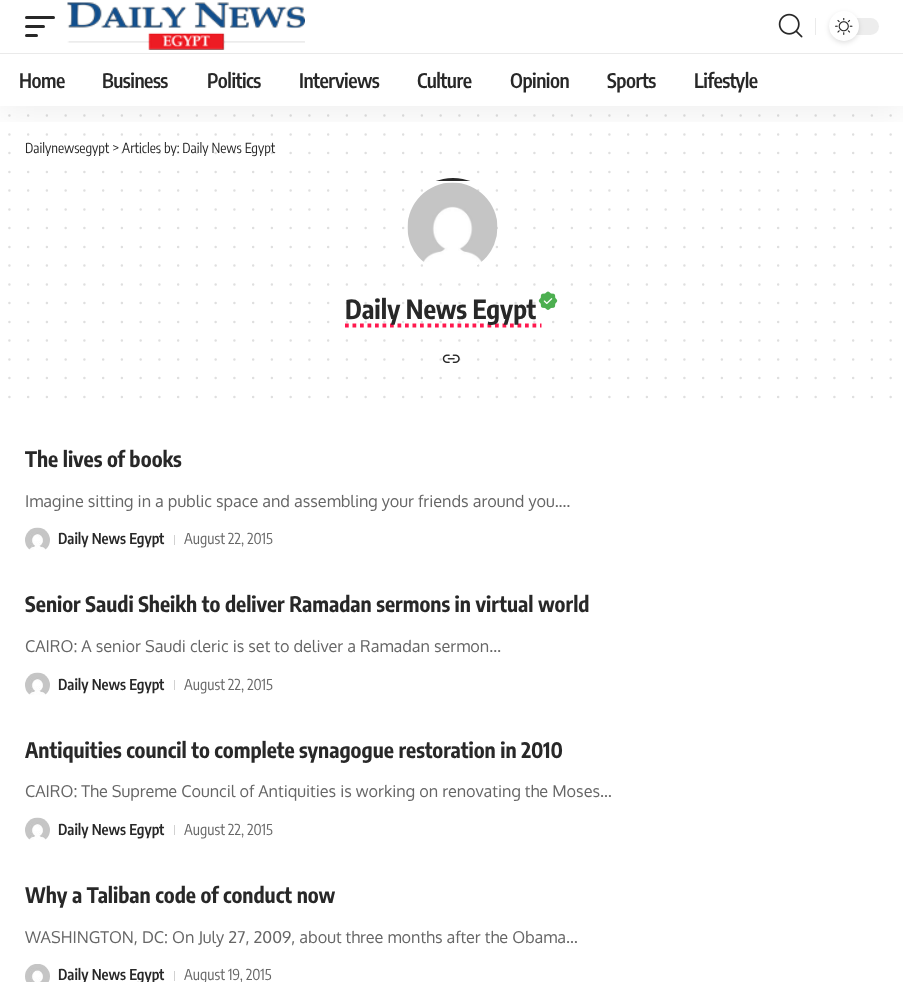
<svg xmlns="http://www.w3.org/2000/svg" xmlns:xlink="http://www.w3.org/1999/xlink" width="903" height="982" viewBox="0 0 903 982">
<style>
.cls-1{font:13.75px Encode Sans Condensed;fill:#282828}
.cls-2{font:600 20px Encode Sans Condensed;letter-spacing:-0.5px;fill:#282828}
.cls-3{font:bold 26.25px Encode Sans Condensed;fill:#282828}
.cls-4{font:bold 21.25px Encode Sans Condensed;fill:#282828}
.cls-5{font:16.25px Oxygen;fill:#666666}
.cls-6{font:600 15px Encode Sans Condensed;fill:#282828}
.cls-7{font:15px Encode Sans Condensed;fill:#666666}
</style>
<defs>
<clipPath id="clip1"><rect x="403" y="178" width="100" height="100" rx="50"/></clipPath>
<clipPath id="clip2"><rect x="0" y="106" width="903" height="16"/></clipPath>
</defs>
<rect width="100%" height="100%" fill="#ffffff"/>
<path fill="none" stroke="#dfdfdf" stroke-width="2.5" stroke-linecap="round" stroke-dasharray="0 18.75" d="M9.4 115.6H890.9"/>
<path fill="none" stroke="#dfdfdf" stroke-width="2.5" stroke-linecap="round" stroke-dasharray="0 18.75" d="M9.4 134.4H890.9"/>
<path fill="none" stroke="#dfdfdf" stroke-width="2.5" stroke-linecap="round" stroke-dasharray="0 18.75" d="M9.4 171.9H890.9"/>
<path fill="none" stroke="#dfdfdf" stroke-width="2.5" stroke-linecap="round" stroke-dasharray="0 18.75" d="M9.4 190.6H890.9"/>
<path fill="none" stroke="#dfdfdf" stroke-width="2.5" stroke-linecap="round" stroke-dasharray="0 18.75" d="M9.4 209.4H890.9"/>
<path fill="none" stroke="#dfdfdf" stroke-width="2.5" stroke-linecap="round" stroke-dasharray="0 18.75" d="M9.4 228.1H890.9"/>
<path fill="none" stroke="#dfdfdf" stroke-width="2.5" stroke-linecap="round" stroke-dasharray="0 18.75" d="M9.4 246.9H890.9"/>
<path fill="none" stroke="#dfdfdf" stroke-width="2.5" stroke-linecap="round" stroke-dasharray="0 18.75" d="M9.4 265.6H890.9"/>
<path fill="none" stroke="#dfdfdf" stroke-width="2.5" stroke-linecap="round" stroke-dasharray="0 18.75" d="M9.4 284.4H890.9"/>
<path fill="none" stroke="#dfdfdf" stroke-width="2.5" stroke-linecap="round" stroke-dasharray="0 18.75" d="M9.4 340.6H890.9"/>
<image xlink:href="image5.png" x="442" y="354" width="18" height="9"/>
<path fill="none" stroke="#282828" stroke-opacity="0.15" stroke-width="2.5" stroke-linecap="round" stroke-dasharray="0 18.75" d="M9.4 359.4H890.9"/>
<path fill="none" stroke="#dfdfdf" stroke-width="2.5" stroke-linecap="round" stroke-dasharray="0 18.75" d="M9.4 378.1H890.9"/>
<path fill="none" stroke="#dfdfdf" stroke-width="2.5" stroke-linecap="round" stroke-dasharray="0 18.75" d="M9.4 396.9H890.9"/>
<g clip-path="url(#clip1)">
<rect fill="#282828" x="428" y="178" width="50" height="3"/>
</g>
<image xlink:href="image3.png" x="407" y="182" width="91" height="85"/>
<path fill="none" stroke="#ff184e" stroke-width="3.8" stroke-dasharray="3.75 3.75" d="M345 325.5H541.5"/>
<image xlink:href="image6.png" x="25" y="527" width="25" height="23"/>
<rect fill="#d1d1d1" x="174" y="535" width="1" height="10"/>
<image xlink:href="image6.png" x="25" y="672" width="25" height="23"/>
<rect fill="#d1d1d1" x="174" y="680" width="1" height="10"/>
<image xlink:href="image6.png" x="25" y="817" width="25" height="23"/>
<rect fill="#d1d1d1" x="174" y="825" width="1" height="10"/>
<image xlink:href="image7.png" x="25" y="964" width="25" height="18"/>
<rect fill="#d1d1d1" x="174" y="971" width="1" height="10"/>
<text class="cls-1" x="25" y="153">Dailynewsegypt &gt; Articles by: Daily News Egypt</text>
<path fill="none" stroke="#282828" stroke-opacity="0.15" stroke-width="2.5" stroke-linecap="round" stroke-dasharray="0 18.75" d="M9.4 153.1H890.9"/>
<g clip-path="url(#clip2)">
<rect fill="#000000" fill-opacity="0.07" filter="blur(19px)" x="0" y="5" width="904" height="106"/>
</g>
<text class="cls-2" x="694" y="88">Lifestyle</text>
<text class="cls-2" x="607" y="88">Sports</text>
<text class="cls-2" x="510" y="88">Opinion</text>
<text class="cls-2" x="417" y="88">Culture</text>
<text class="cls-2" x="299" y="88">Interviews</text>
<text class="cls-2" x="207" y="88">Politics</text>
<text class="cls-2" x="102" y="88">Business</text>
<text class="cls-2" x="19" y="88">Home</text>
<rect fill="#eaeaea" x="0" y="53" width="903" height="1"/>
<rect fill="#ededed" x="829" y="18" width="50" height="17" rx="8.5"/>
<rect fill="#000000" fill-opacity="0.12" filter="blur(2.5px)" x="829" y="13" width="30" height="30" rx="15"/>
<circle fill="#ffffff" cx="844" cy="26" r="15"/>
<image xlink:href="image2.png" x="835" y="18" width="18" height="17"/>
<rect fill="#eaeaea" x="815" y="18" width="1" height="17"/>
<image xlink:href="image1.png" x="778" y="13" width="25" height="25"/>
<rect fill="#282828" x="25" y="34" width="13" height="3" rx="1.5"/>
<rect fill="#282828" x="25" y="25" width="20" height="3" rx="1.5"/>
<rect fill="#282828" x="25" y="16" width="30" height="3" rx="1.5"/>
<image xlink:href="image0.png" x="67" y="2" width="238" height="48"/>
<text class="cls-3" x="345" y="319">Daily News Egypt</text>
<path fill="none" stroke="#282828" stroke-opacity="0.15" stroke-width="2.5" stroke-linecap="round" stroke-dasharray="0 18.75" d="M9.4 321.9H890.9"/>
<path fill="none" stroke="#282828" stroke-opacity="0.15" stroke-width="2.5" stroke-linecap="round" stroke-dasharray="0 18.75" d="M9.4 303.1H890.9"/>
<image xlink:href="image4.png" x="538" y="291" width="20" height="19"/>
<text class="cls-4" x="25" y="467">The lives of books</text>
<text class="cls-5" x="25" y="507">Imagine sitting in a public space and assembling your friends around you.…</text>
<text class="cls-6" x="58" y="544">Daily News Egypt</text>
<text class="cls-7" x="184" y="544">August 22, 2015</text>
<text class="cls-4" x="25" y="612">Senior Saudi Sheikh to deliver Ramadan sermons in virtual world</text>
<text class="cls-5" x="25" y="652">CAIRO: A senior Saudi cleric is set to deliver a Ramadan sermon…</text>
<text class="cls-6" x="58" y="690">Daily News Egypt</text>
<text class="cls-7" x="184" y="690">August 22, 2015</text>
<text class="cls-4" x="25" y="758">Antiquities council to complete synagogue restoration in 2010</text>
<text class="cls-5" x="25" y="797">CAIRO: The Supreme Council of Antiquities is working on renovating the Moses…</text>
<text class="cls-6" x="58" y="835">Daily News Egypt</text>
<text class="cls-7" x="184" y="835">August 22, 2015</text>
<text class="cls-4" x="25" y="903">Why a Taliban code of conduct now</text>
<text class="cls-5" x="25" y="943">WASHINGTON, DC: On July 27, 2009, about three months after the Obama…</text>
<text class="cls-6" x="58" y="980">Daily News Egypt</text>
<text class="cls-7" x="184" y="980">August 19, 2015</text>
</svg>
